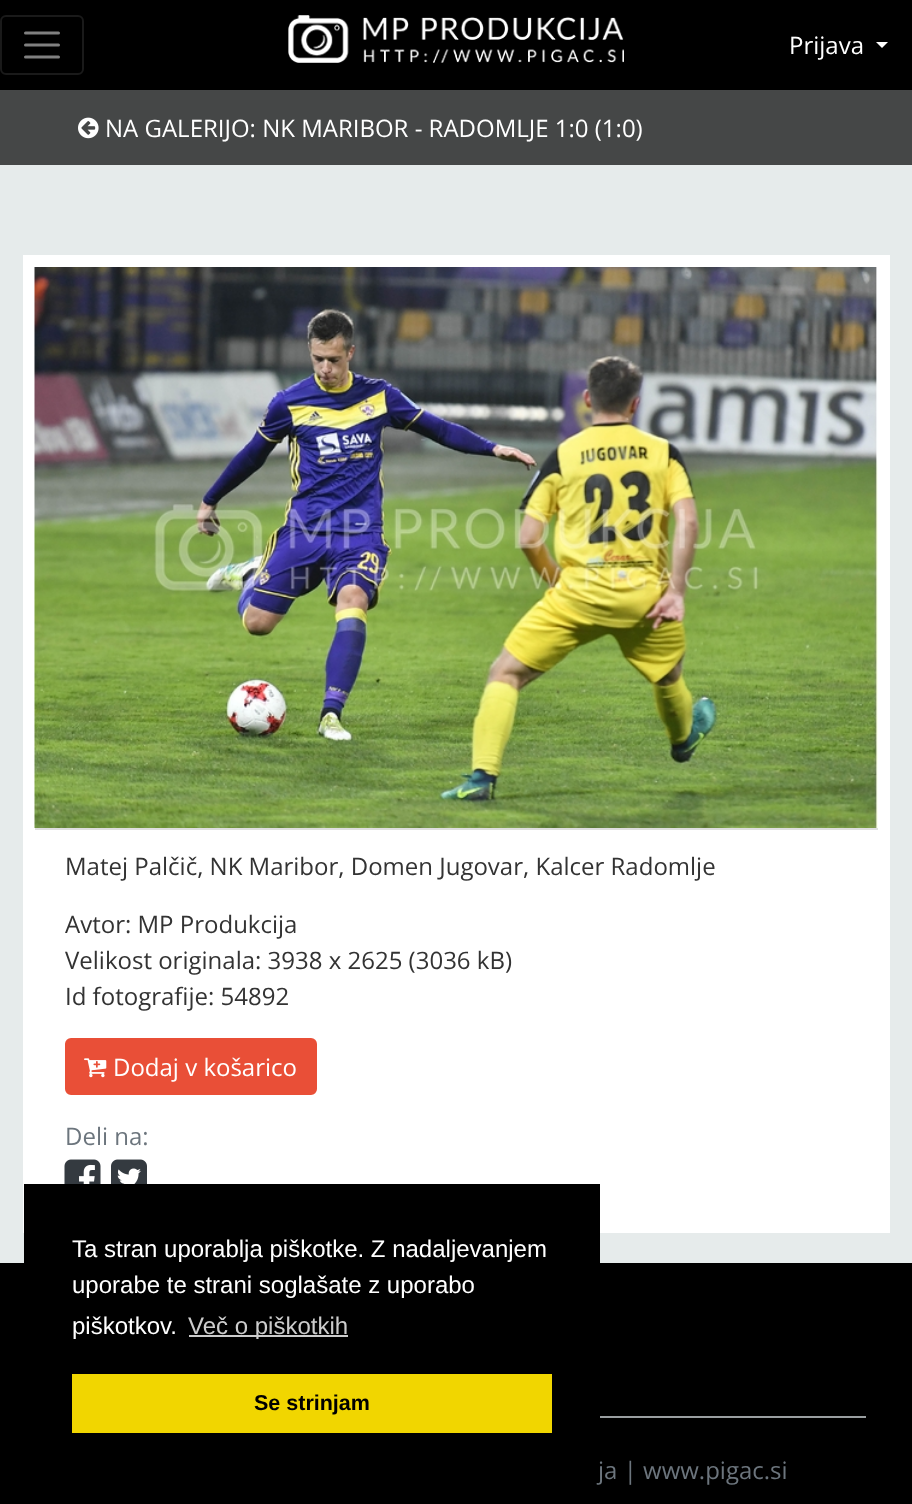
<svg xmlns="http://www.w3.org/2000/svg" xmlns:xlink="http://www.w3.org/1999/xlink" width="912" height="1504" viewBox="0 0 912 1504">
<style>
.cls-1{font:24px Open Sans;fill:#ffffff}
.cls-2{font:24px Open Sans;fill:#333333}
.cls-3{font:24px Open Sans;fill:#6c757d}
.cls-4{font:24px Liberation Sans;fill:#ffffff}
.cls-5{font:24px Liberation Sans;fill:#cccccc}
.cls-6{font:bold 21.5px Liberation Sans;fill:#000000}
</style>
<rect width="100%" height="100%" fill="#e6ebeb"/>
<rect fill="#000000" x="0" y="0" width="912" height="90"/>
<rect fill="none" stroke="#1a1a1a" stroke-width="2" x="1" y="16" width="82" height="58" rx="5"/>
<path fill="none" stroke="#808080" stroke-width="3" stroke-linecap="round" d="M25.5 33H58.5M25.5 45H58.5M25.5 57H58.5"/>
<image xlink:href="image0.png" x="288" y="15" width="336" height="48"/>
<path fill="#ffffff" d="M876 42H888L882 48Z"/>
<rect fill="#454747" x="0" y="90" width="912" height="75"/>
<image xlink:href="image1.png" x="78" y="117" width="21" height="22"/>
<rect fill="#ffffff" x="23" y="255" width="867" height="978"/>
<image xlink:href="image2.png" x="34" y="267" width="844" height="561"/>
<rect fill="#dfdfdf" x="35" y="828" width="843" height="2"/>
<rect fill="#e94f37" stroke="#e94f37" stroke-width="2" x="66" y="1039" width="250" height="55" rx="5"/>
<image xlink:href="image3.png" x="84" y="1058" width="23" height="20"/>
<image xlink:href="image4.png" x="64" y="1159" width="37" height="25"/>
<image xlink:href="image5.png" x="111" y="1159" width="36" height="25"/>
<rect fill="#000000" x="24" y="1184" width="576" height="79"/>
<rect fill="#000000" x="0" y="1263" width="912" height="241"/>
<rect fill="#cccccc" x="189" y="1335" width="159" height="2"/>
<rect fill="#f1d600" x="72" y="1374" width="480" height="59"/>
<rect fill="#999ea0" x="600" y="1416" width="266" height="2"/>
<text class="cls-1" x="789" y="54">Prijava</text>
<text class="cls-1" x="105" y="137">NA GALERIJO: NK MARIBOR - RADOMLJE 1:0 (1:0)</text>
<text class="cls-2" x="65" y="875">Matej Palčič, NK Maribor, Domen Jugovar, Kalcer Radomlje</text>
<text class="cls-2"><tspan x="65" y="933">Avtor: MP Produkcija</tspan><tspan x="65" y="969">Velikost originala: 3938 x 2625 (3036 kB)</tspan><tspan x="65" y="1005">Id fotografije: 54892</tspan></text>
<text class="cls-1" x="113" y="1076">Dodaj v košarico</text>
<text class="cls-3" x="65" y="1145">Deli na:</text>
<text class="cls-4"><tspan x="72" y="1257">Ta stran uporablja piškotke. Z nadaljevanjem</tspan><tspan x="72" y="1293">uporabe te strani soglašate z uporabo</tspan><tspan x="72" y="1334">piškotkov.</tspan></text>
<text class="cls-5" x="188" y="1334">Več o piškotkih</text>
<text class="cls-6" x="254" y="1410">Se strinjam</text>
<text class="cls-3" x="598" y="1479">ja | www.pigac.si</text>
</svg>
